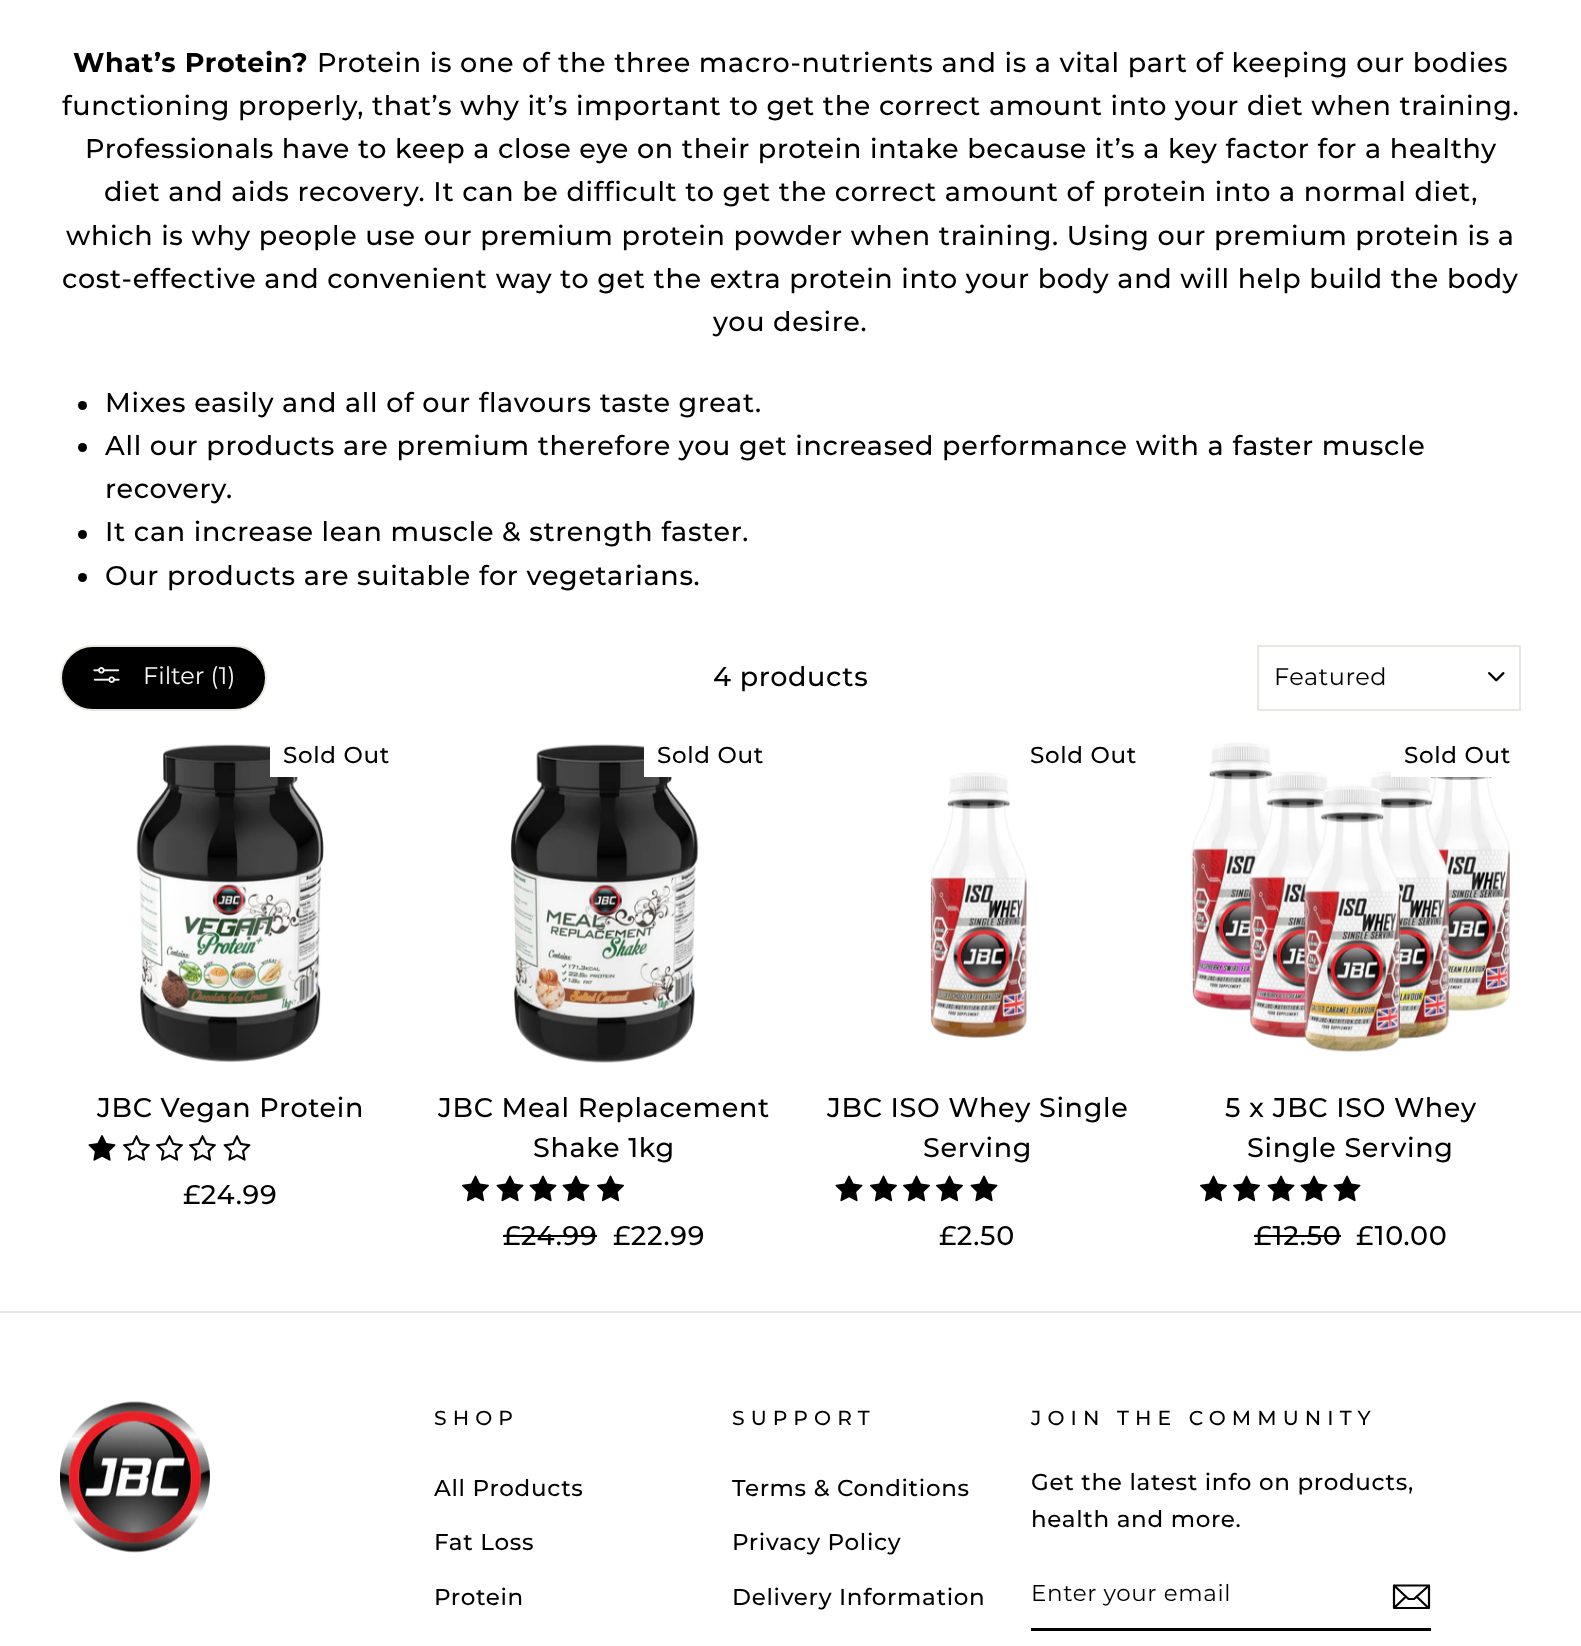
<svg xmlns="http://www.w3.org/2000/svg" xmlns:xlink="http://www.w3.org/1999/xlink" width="1581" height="1646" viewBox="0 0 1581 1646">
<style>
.cls-1{font:bold 27px Montserrat;letter-spacing:0.68px;fill:#000000}
.cls-2{font:500 27px Montserrat;letter-spacing:0.68px;fill:#000000}
.cls-3{font:100 24px Montserrat;fill:#f5f5f5}
.cls-4{font:100 24px Montserrat;letter-spacing:0.5px;fill:#000000}
.cls-5{font:500 23px Montserrat;letter-spacing:0.68px;fill:#000000}
.cls-6{font:500 20.25px Montserrat;letter-spacing:6.1px;fill:#000000}
.cls-7{font:100 23px Montserrat;letter-spacing:0.6px;fill:#000000}
</style>
<rect width="100%" height="100%" fill="#ffffff"/>
<circle fill="#000000" cx="82.5" cy="405.5" r="4.5"/>
<circle fill="#000000" cx="82.5" cy="447.5" r="4.5"/>
<circle fill="#000000" cx="82.5" cy="534.5" r="4.5"/>
<circle fill="#000000" cx="82.5" cy="577.5" r="4.5"/>
<rect fill="#000000" stroke="#e8e8e1" stroke-width="2" x="61" y="646" width="205" height="64" rx="32"/>
<image xlink:href="image0.png" x="93" y="667" width="27" height="16"/>
<image xlink:href="image1.png" x="1488" y="672" width="17" height="10"/>
<rect fill="none" stroke="#e8e8e1" stroke-width="2" x="1258" y="646" width="262" height="64"/>
<image xlink:href="image2.png" x="136" y="744" width="188" height="319"/>
<rect fill="#ffffff" x="270" y="745" width="28" height="32"/>
<image xlink:href="image3.png" x="88" y="1135" width="28" height="26"/>
<image xlink:href="image4.png" x="123" y="1135" width="27" height="26"/>
<image xlink:href="image4.png" x="156" y="1135" width="27" height="26"/>
<image xlink:href="image4.png" x="189" y="1135" width="27" height="26"/>
<image xlink:href="image5.png" x="223" y="1135" width="28" height="26"/>
<image xlink:href="image6.png" x="510" y="744" width="189" height="319"/>
<rect fill="#ffffff" x="644" y="745" width="30" height="32"/>
<image xlink:href="image7.png" x="462" y="1175" width="27" height="27"/>
<image xlink:href="image8.png" x="496" y="1175" width="28" height="27"/>
<image xlink:href="image8.png" x="529" y="1175" width="28" height="27"/>
<image xlink:href="image8.png" x="562" y="1175" width="28" height="27"/>
<image xlink:href="image7.png" x="597" y="1175" width="27" height="27"/>
<rect fill="#000000" x="503" y="1235" width="94" height="2"/>
<image xlink:href="image9.png" x="930" y="772" width="97" height="266"/>
<image xlink:href="image8.png" x="835" y="1175" width="28" height="27"/>
<image xlink:href="image7.png" x="870" y="1175" width="27" height="27"/>
<image xlink:href="image7.png" x="903" y="1175" width="27" height="27"/>
<image xlink:href="image7.png" x="936" y="1175" width="27" height="27"/>
<image xlink:href="image8.png" x="970" y="1175" width="28" height="27"/>
<image xlink:href="image10.png" x="1191" y="742" width="319" height="311"/>
<rect fill="#ffffff" x="1391" y="743" width="102" height="34"/>
<image xlink:href="image7.png" x="1200" y="1175" width="27" height="27"/>
<image xlink:href="image7.png" x="1233" y="1175" width="27" height="27"/>
<image xlink:href="image8.png" x="1267" y="1175" width="28" height="27"/>
<image xlink:href="image8.png" x="1300" y="1175" width="28" height="27"/>
<image xlink:href="image8.png" x="1333" y="1175" width="28" height="27"/>
<rect fill="#000000" x="1254" y="1235" width="87" height="2"/>
<rect fill="#e8e8e1" x="0" y="1311" width="1581" height="2"/>
<image xlink:href="image11.png" x="60" y="1401" width="150" height="152"/>
<rect fill="#000000" x="1031" y="1628" width="400" height="3"/>
<path fill="none" stroke="#000000" stroke-width="2.2" stroke-linecap="round" stroke-linejoin="round" d="M1429 1608H1394V1585.5H1429ZM1394 1585.5L1408.5 1599H1414L1429 1585.5M1406 1596.5L1394.5 1607.5M1428.5 1608L1416.5 1596.5"/>
<text class="cls-1" x="73" y="72">What’s Protein?</text>
<text class="cls-2" x="317" y="72">Protein is one of the three macro-nutrients and is a vital part of keeping our bodies</text>
<text class="cls-2" x="62" y="115">functioning properly, that’s why it’s important to get the correct amount into your diet when training.</text>
<text class="cls-2" x="85" y="158">Professionals have to keep a close eye on their protein intake because it’s a key factor for a healthy</text>
<text class="cls-2" x="104" y="201">diet and aids recovery. It can be difficult to get the correct amount of protein into a normal diet,</text>
<text class="cls-2" x="66" y="245">which is why people use our premium protein powder when training. Using our premium protein is a</text>
<text class="cls-2" x="62" y="288">cost-effective and convenient way to get the extra protein into your body and will help build the body</text>
<text class="cls-2" x="713" y="331">you desire.</text>
<text class="cls-2"><tspan x="105" y="412">Mixes easily and all of our flavours taste great.</tspan><tspan x="105" y="455">All our products are premium therefore you get increased performance with a faster muscle</tspan><tspan x="105" y="498">recovery.</tspan><tspan x="105" y="541">It can increase lean muscle &amp; strength faster.</tspan><tspan x="105" y="585">Our products are suitable for vegetarians.</tspan></text>
<text class="cls-3" x="143" y="684">Filter (1)</text>
<text class="cls-2" x="713" y="686">4 products</text>
<text class="cls-4" x="1274" y="685">Featured</text>
<text class="cls-5" x="283" y="763">Sold Out</text>
<text class="cls-2" x="97" y="1117">JBC Vegan Protein</text>
<text class="cls-2" x="183" y="1204">£24.99</text>
<text class="cls-5" x="657" y="763">Sold Out</text>
<text class="cls-2" x="438" y="1117">JBC Meal Replacement</text>
<text class="cls-2" x="533" y="1157">Shake 1kg</text>
<text class="cls-2" x="503" y="1245">£24.99</text>
<text class="cls-2" x="613" y="1245">£22.99</text>
<text class="cls-5" x="1030" y="763">Sold Out</text>
<text class="cls-2" x="827" y="1117">JBC ISO Whey Single</text>
<text class="cls-2" x="923" y="1157">Serving</text>
<text class="cls-2" x="939" y="1245">£2.50</text>
<text class="cls-5" x="1404" y="763">Sold Out</text>
<text class="cls-2" x="1225" y="1117">5 x JBC ISO Whey</text>
<text class="cls-2" x="1247" y="1157">Single Serving</text>
<text class="cls-2" x="1254" y="1245">£12.50</text>
<text class="cls-2" x="1356" y="1245">£10.00</text>
<text class="cls-6" x="434" y="1425">SHOP</text>
<text class="cls-5" x="434" y="1496">All Products</text>
<text class="cls-5" x="434" y="1550">Fat Loss</text>
<text class="cls-5" x="434" y="1605">Protein</text>
<text class="cls-6" x="732" y="1425">SUPPORT</text>
<text class="cls-5" x="732" y="1496">Terms &amp; Conditions</text>
<text class="cls-5" x="732" y="1550">Privacy Policy</text>
<text class="cls-5" x="732" y="1605">Delivery Information</text>
<text class="cls-6" x="1031" y="1425">JOIN THE COMMUNITY</text>
<text class="cls-5"><tspan x="1031" y="1490">Get the latest info on products,</tspan><tspan x="1031" y="1527">health and more.</tspan></text>
<text class="cls-7" x="1031" y="1601">Enter your email</text>
</svg>
